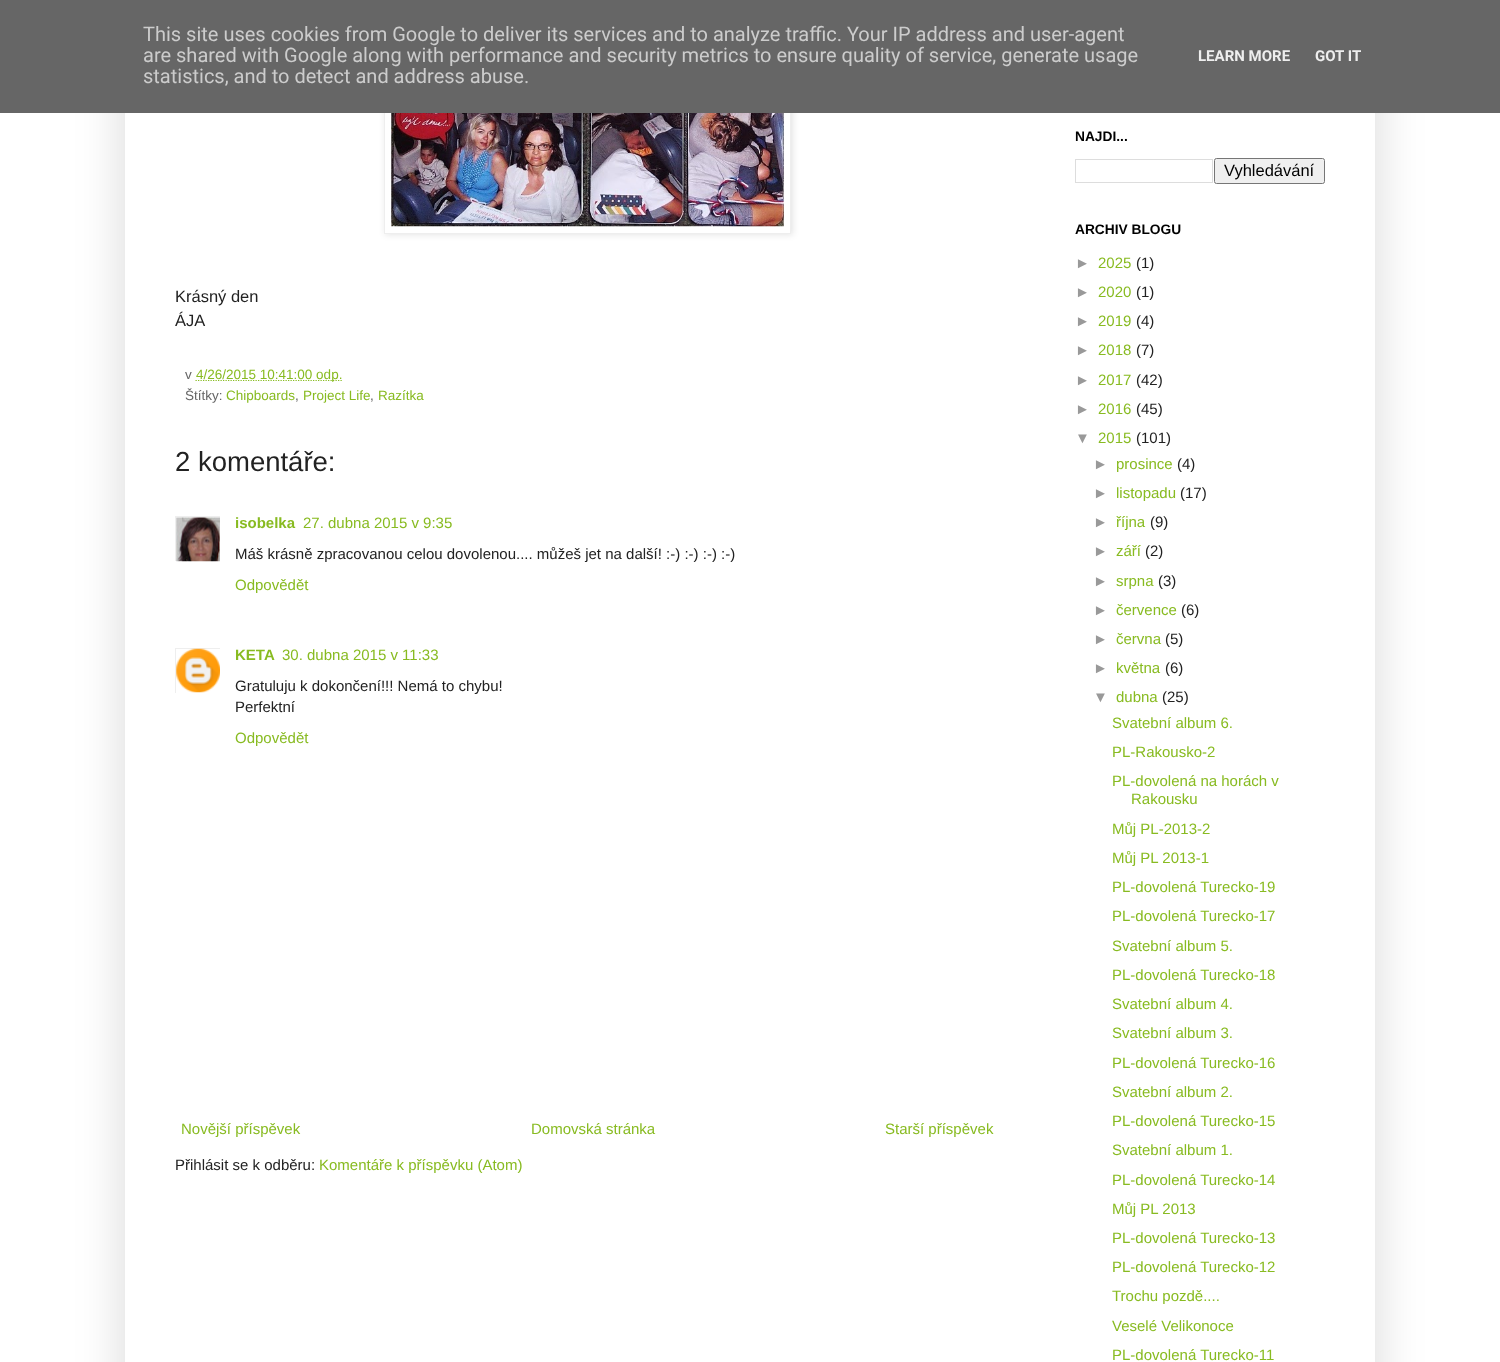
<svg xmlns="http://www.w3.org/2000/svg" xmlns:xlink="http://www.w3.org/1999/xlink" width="1500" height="1362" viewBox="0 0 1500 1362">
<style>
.cls-1{font:20px Roboto;fill:#cccccc}
.cls-2{font:bold 15px Roboto;fill:#eeeeee}
.cls-3{font:16.5px Liberation Sans;fill:#222222}
.cls-4{font:13.5px Liberation Sans;fill:#666666}
.cls-5{font:13.5px Liberation Sans;fill:#88bb21}
.cls-6{font:27.5px Liberation Sans;fill:#222222}
.cls-7{font:bold 15px Liberation Sans;fill:#88bb21}
.cls-8{font:15px Liberation Sans;fill:#88bb21}
.cls-9{font:15px Liberation Sans;fill:#222222}
.cls-10{font:bold 13.75px Liberation Sans;fill:#000000}
.cls-11{font:16.5px Liberation Sans;fill:#000000}
.cls-12{font:15px Liberation Sans;fill:#999999}
</style>
<defs>
<clipPath id="clip1"><path d="M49 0H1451V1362H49ZM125-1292H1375V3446H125Z" clip-rule="evenodd"/></clipPath>
<clipPath id="clip2"><rect x="175" y="516" width="45" height="45"/></clipPath>
<clipPath id="clip3"><rect x="175" y="648" width="45" height="45"/></clipPath>
</defs>
<rect width="100%" height="100%" fill="#ffffff"/>
<g clip-path="url(#clip1)">
<rect fill="#000000" fill-opacity="0.15" filter="blur(25px)" x="125" y="-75" width="1250" height="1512"/>
</g>
<rect fill="#000000" fill-opacity="0.1" filter="blur(3px)" x="385" y="-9" width="408" height="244"/>
<rect fill="#ffffff" x="385" y="113" width="405" height="120"/>
<rect fill="none" stroke="#eeeeee" x="384.5" y="-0.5" width="406" height="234"/>
<rect fill="#666666" x="0" y="0" width="1500" height="113"/>
<image xlink:href="image0.png" x="391" y="113" width="393" height="114"/>
<path fill="none" stroke="#88bb21" stroke-width="1.2" stroke-dasharray="1.25 1.25" d="M195.5 380.5H342"/>
<g clip-path="url(#clip2)">
<rect fill="none" stroke="#eeeeee" x="175.5" y="516.5" width="47" height="47"/>
</g>
<image xlink:href="image1.png" x="176" y="517" width="44" height="45"/>
<g clip-path="url(#clip3)">
<rect fill="none" stroke="#eeeeee" x="175.5" y="648.5" width="45" height="45"/>
</g>
<image xlink:href="image2.png" x="176" y="648" width="44" height="45"/>
<rect fill="none" stroke="#dddddd" x="1075.5" y="159.5" width="137" height="23"/>
<rect fill="#efefef" stroke="#767676" x="1214.5" y="158.5" width="110" height="25" rx="2"/>
<text class="cls-1"><tspan x="143" y="41">This site uses cookies from Google to deliver its services and to analyze traffic. Your IP address and user-agent</tspan><tspan x="143" y="62">are shared with Google along with performance and security metrics to ensure quality of service, generate usage</tspan><tspan x="143" y="83">statistics, and to detect and address abuse.</tspan></text>
<text class="cls-2" x="1198" y="61">LEARN MORE</text>
<text class="cls-2" x="1315" y="61">GOT IT</text>
<text class="cls-3"><tspan x="175" y="302">Krásný den</tspan><tspan x="175" y="326">ÁJA</tspan></text>
<text class="cls-4" x="185" y="379">v</text>
<text class="cls-5" x="196" y="379">4/26/2015 10:41:00 odp.</text>
<text class="cls-4" x="185" y="400">Štítky:</text>
<text class="cls-5" x="226" y="400">Chipboards</text>
<text class="cls-4" x="295" y="400">,</text>
<text class="cls-5" x="303" y="400">Project Life</text>
<text class="cls-4" x="370" y="400">,</text>
<text class="cls-5" x="378" y="400">Razítka</text>
<text class="cls-6" x="175" y="471">2 komentáře:</text>
<text class="cls-7" x="235" y="528">isobelka</text>
<text class="cls-8" x="303" y="528">27. dubna 2015 v 9:35</text>
<text class="cls-9" x="235" y="559">Máš krásně zpracovanou celou dovolenou.... můžeš jet na další! :-) :-) :-) :-)</text>
<text class="cls-8" x="235" y="590">Odpovědět</text>
<text class="cls-7" x="235" y="660">KETA</text>
<text class="cls-8" x="282" y="660">30. dubna 2015 v 11:33</text>
<text class="cls-9"><tspan x="235" y="691">Gratuluju k dokončení!!! Nemá to chybu!</tspan><tspan x="235" y="712">Perfektní</tspan></text>
<text class="cls-8" x="235" y="743">Odpovědět</text>
<text class="cls-8" x="181" y="1134">Novější příspěvek</text>
<text class="cls-8" x="531" y="1134">Domovská stránka</text>
<text class="cls-8" x="885" y="1134">Starší příspěvek</text>
<text class="cls-9" x="175" y="1170">Přihlásit se k odběru:</text>
<text class="cls-8" x="319" y="1170">Komentáře k příspěvku (Atom)</text>
<text class="cls-10" x="1075" y="141">NAJDI...</text>
<text class="cls-11" x="1224" y="176">Vyhledávání</text>
<text class="cls-10" x="1075" y="234">ARCHIV BLOGU</text>
<text class="cls-12" x="1075" y="268">►</text>
<text class="cls-8" x="1098" y="268">2025</text>
<text class="cls-9" x="1136" y="268">(1)</text>
<text class="cls-12" x="1075" y="297">►</text>
<text class="cls-8" x="1098" y="297">2020</text>
<text class="cls-9" x="1136" y="297">(1)</text>
<text class="cls-12" x="1075" y="326">►</text>
<text class="cls-8" x="1098" y="326">2019</text>
<text class="cls-9" x="1136" y="326">(4)</text>
<text class="cls-12" x="1075" y="355">►</text>
<text class="cls-8" x="1098" y="355">2018</text>
<text class="cls-9" x="1136" y="355">(7)</text>
<text class="cls-12" x="1075" y="385">►</text>
<text class="cls-8" x="1098" y="385">2017</text>
<text class="cls-9" x="1136" y="385">(42)</text>
<text class="cls-12" x="1075" y="414">►</text>
<text class="cls-8" x="1098" y="414">2016</text>
<text class="cls-9" x="1136" y="414">(45)</text>
<text class="cls-12" x="1075" y="443">▼</text>
<text class="cls-8" x="1098" y="443">2015</text>
<text class="cls-9" x="1136" y="443">(101)</text>
<text class="cls-12" x="1093" y="469">►</text>
<text class="cls-8" x="1116" y="469">prosince</text>
<text class="cls-9" x="1177" y="469">(4)</text>
<text class="cls-12" x="1093" y="498">►</text>
<text class="cls-8" x="1116" y="498">listopadu</text>
<text class="cls-9" x="1180" y="498">(17)</text>
<text class="cls-12" x="1093" y="527">►</text>
<text class="cls-8" x="1116" y="527">října</text>
<text class="cls-9" x="1150" y="527">(9)</text>
<text class="cls-12" x="1093" y="556">►</text>
<text class="cls-8" x="1116" y="556">září</text>
<text class="cls-9" x="1145" y="556">(2)</text>
<text class="cls-12" x="1093" y="586">►</text>
<text class="cls-8" x="1116" y="586">srpna</text>
<text class="cls-9" x="1158" y="586">(3)</text>
<text class="cls-12" x="1093" y="615">►</text>
<text class="cls-8" x="1116" y="615">července</text>
<text class="cls-9" x="1181" y="615">(6)</text>
<text class="cls-12" x="1093" y="644">►</text>
<text class="cls-8" x="1116" y="644">června</text>
<text class="cls-9" x="1165" y="644">(5)</text>
<text class="cls-12" x="1093" y="673">►</text>
<text class="cls-8" x="1116" y="673">května</text>
<text class="cls-9" x="1165" y="673">(6)</text>
<text class="cls-12" x="1093" y="702">▼</text>
<text class="cls-8" x="1116" y="702">dubna</text>
<text class="cls-9" x="1162" y="702">(25)</text>
<text class="cls-8"><tspan x="1112" y="728">Svatební album 6.</tspan><tspan x="1112" y="757">PL-Rakousko-2</tspan><tspan x="1112" y="786">PL-dovolená na horách v</tspan></text>
<text class="cls-8" x="1131" y="804">Rakousku</text>
<text class="cls-8"><tspan x="1112" y="834">Můj PL-2013-2</tspan><tspan x="1112" y="863">Můj PL 2013-1</tspan><tspan x="1112" y="892">PL-dovolená Turecko-19</tspan><tspan x="1112" y="921">PL-dovolená Turecko-17</tspan></text>
<text class="cls-8"><tspan x="1112" y="951">Svatební album 5.</tspan><tspan x="1112" y="980">PL-dovolená Turecko-18</tspan><tspan x="1112" y="1009">Svatební album 4.</tspan><tspan x="1112" y="1038">Svatební album 3.</tspan></text>
<text class="cls-8"><tspan x="1112" y="1068">PL-dovolená Turecko-16</tspan><tspan x="1112" y="1097">Svatební album 2.</tspan><tspan x="1112" y="1126">PL-dovolená Turecko-15</tspan><tspan x="1112" y="1155">Svatební album 1.</tspan></text>
<text class="cls-8"><tspan x="1112" y="1185">PL-dovolená Turecko-14</tspan><tspan x="1112" y="1214">Můj PL 2013</tspan><tspan x="1112" y="1243">PL-dovolená Turecko-13</tspan><tspan x="1112" y="1272">PL-dovolená Turecko-12</tspan><tspan x="1112" y="1301">Trochu pozdě....</tspan></text>
<text class="cls-8"><tspan x="1112" y="1331">Veselé Velikonoce</tspan><tspan x="1112" y="1360">PL-dovolená Turecko-11</tspan></text>
</svg>
